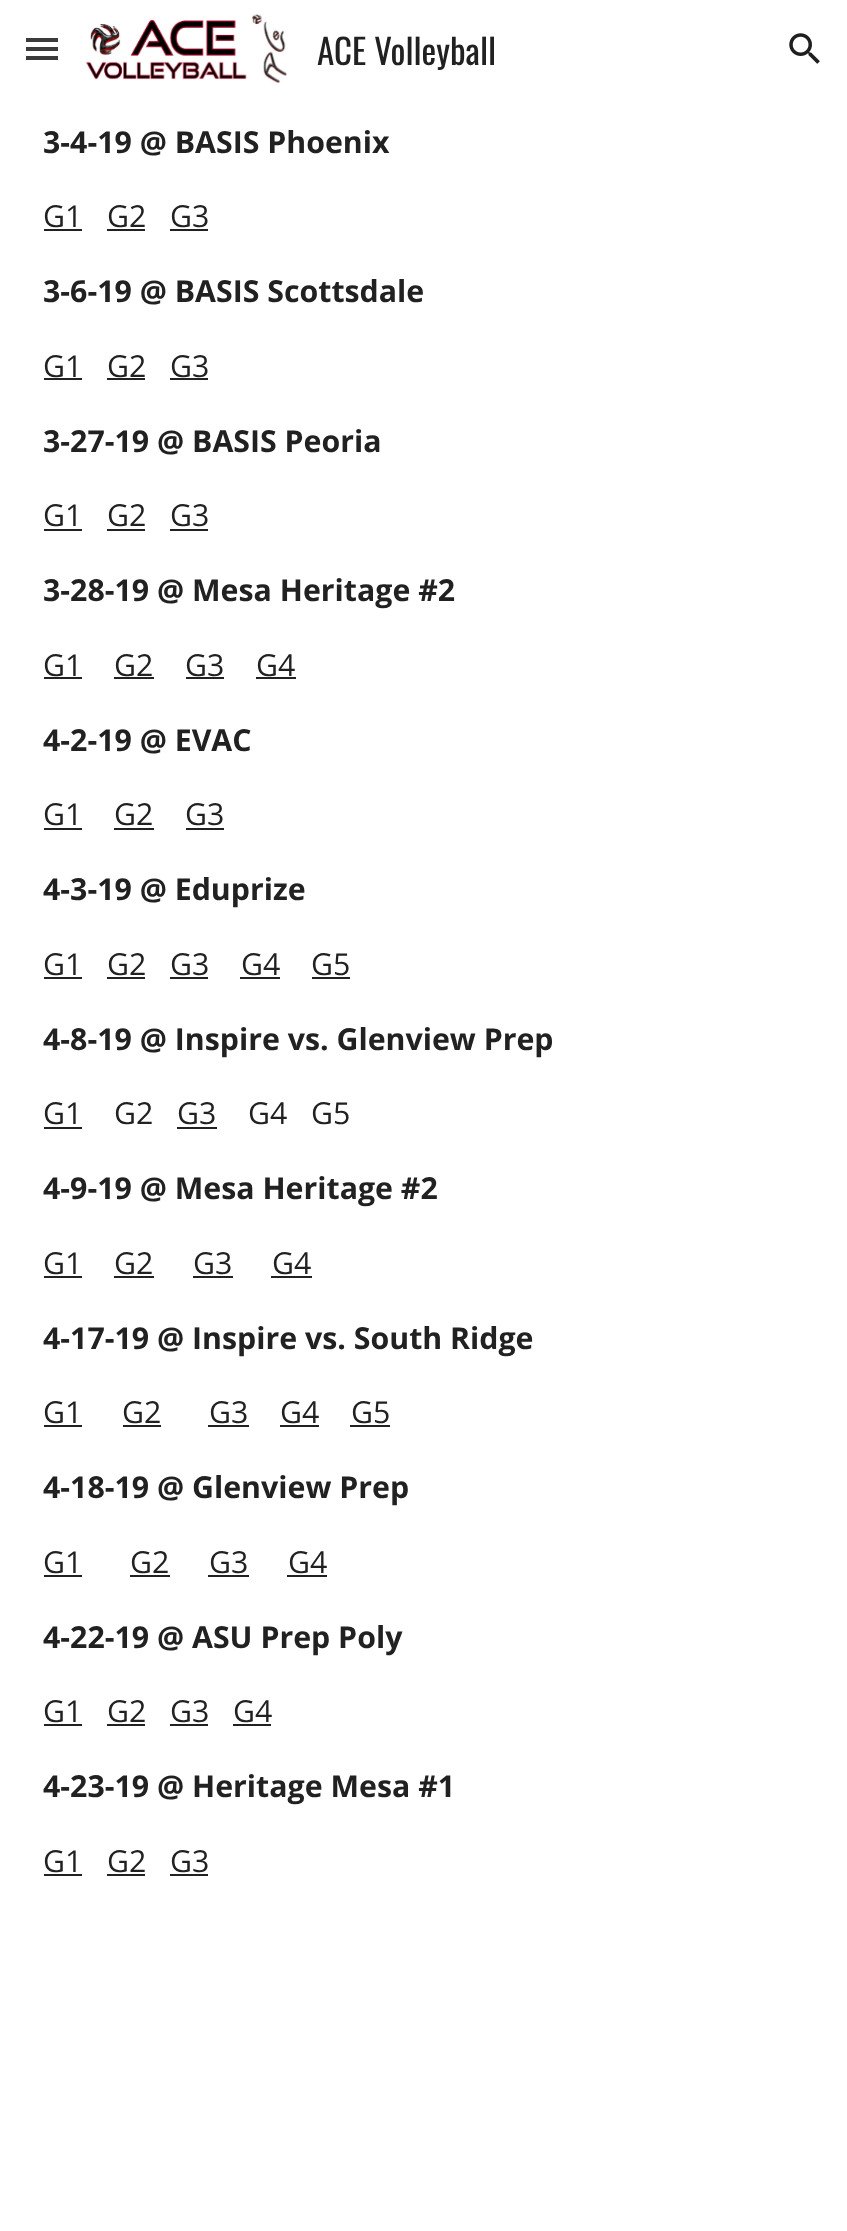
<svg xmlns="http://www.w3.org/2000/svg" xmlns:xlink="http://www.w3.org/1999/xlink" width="847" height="2231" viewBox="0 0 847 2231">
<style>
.cls-1{font:35px Oswald;fill:#212121}
.cls-2{font:bold 30.3px Open Sans;fill:#212121}
.cls-3{font:30.3px Open Sans;fill:#212121}
</style>
<rect width="100%" height="100%" fill="#ffffff"/>
<rect fill="#3b3b3b" x="26" y="38" width="32" height="4"/>
<rect fill="#3b3b3b" x="26" y="47" width="32" height="4"/>
<rect fill="#3b3b3b" x="26" y="56" width="32" height="4"/>
<image xlink:href="image0.png" x="86" y="14" width="201" height="70"/>
<image xlink:href="image1.png" x="789" y="33" width="31" height="31"/>
<rect fill="#212121" x="44" y="229" width="38" height="2"/>
<rect fill="#212121" x="107" y="229" width="38" height="2"/>
<rect fill="#212121" x="170" y="229" width="38" height="2"/>
<rect fill="#212121" x="44" y="378" width="38" height="2"/>
<rect fill="#212121" x="107" y="378" width="38" height="2"/>
<rect fill="#212121" x="170" y="378" width="38" height="2"/>
<rect fill="#212121" x="44" y="529" width="38" height="2"/>
<rect fill="#212121" x="107" y="529" width="38" height="2"/>
<rect fill="#212121" x="170" y="529" width="38" height="2"/>
<rect fill="#212121" x="44" y="677" width="38" height="2"/>
<rect fill="#212121" x="114" y="677" width="40" height="2"/>
<rect fill="#212121" x="186" y="677" width="38" height="2"/>
<rect fill="#212121" x="256" y="677" width="40" height="2"/>
<rect fill="#212121" x="44" y="828" width="38" height="2"/>
<rect fill="#212121" x="114" y="828" width="40" height="2"/>
<rect fill="#212121" x="186" y="828" width="38" height="2"/>
<rect fill="#212121" x="44" y="977" width="38" height="2"/>
<rect fill="#212121" x="107" y="977" width="38" height="2"/>
<rect fill="#212121" x="170" y="977" width="38" height="2"/>
<rect fill="#212121" x="240" y="977" width="40" height="2"/>
<rect fill="#212121" x="312" y="977" width="38" height="2"/>
<rect fill="#212121" x="44" y="1127" width="38" height="2"/>
<rect fill="#212121" x="177" y="1127" width="40" height="2"/>
<rect fill="#212121" x="44" y="1276" width="38" height="2"/>
<rect fill="#212121" x="114" y="1276" width="40" height="2"/>
<rect fill="#212121" x="193" y="1276" width="40" height="2"/>
<rect fill="#212121" x="271" y="1276" width="41" height="2"/>
<rect fill="#212121" x="44" y="1425" width="38" height="2"/>
<rect fill="#212121" x="123" y="1425" width="38" height="2"/>
<rect fill="#212121" x="208" y="1425" width="41" height="2"/>
<rect fill="#212121" x="280" y="1425" width="39" height="2"/>
<rect fill="#212121" x="350" y="1425" width="40" height="2"/>
<rect fill="#212121" x="44" y="1575" width="38" height="2"/>
<rect fill="#212121" x="130" y="1575" width="40" height="2"/>
<rect fill="#212121" x="208" y="1575" width="41" height="2"/>
<rect fill="#212121" x="287" y="1575" width="40" height="2"/>
<rect fill="#212121" x="44" y="1724" width="38" height="2"/>
<rect fill="#212121" x="107" y="1724" width="38" height="2"/>
<rect fill="#212121" x="170" y="1724" width="38" height="2"/>
<rect fill="#212121" x="233" y="1724" width="38" height="2"/>
<rect fill="#212121" x="44" y="1874" width="38" height="2"/>
<rect fill="#212121" x="107" y="1874" width="38" height="2"/>
<rect fill="#212121" x="170" y="1874" width="38" height="2"/>
<text class="cls-1" x="317" y="65">ACE Volleyball</text>
<text class="cls-2" x="43" y="153">3-4-19 @ BASIS Phoenix</text>
<text class="cls-3" x="43" y="227">G1</text>
<text class="cls-3" x="107" y="227">G2</text>
<text class="cls-3" x="170" y="227">G3</text>
<text class="cls-2" x="43" y="302">3-6-19 @ BASIS Scottsdale</text>
<text class="cls-3" x="43" y="377">G1</text>
<text class="cls-3" x="107" y="377">G2</text>
<text class="cls-3" x="170" y="377">G3</text>
<text class="cls-2" x="43" y="452">3-27-19 @ BASIS Peoria</text>
<text class="cls-3" x="43" y="526">G1</text>
<text class="cls-3" x="107" y="526">G2</text>
<text class="cls-3" x="170" y="526">G3</text>
<text class="cls-2" x="43" y="601">3-28-19 @ Mesa Heritage #2</text>
<text class="cls-3" x="43" y="676">G1</text>
<text class="cls-3" x="114" y="676">G2</text>
<text class="cls-3" x="185" y="676">G3</text>
<text class="cls-3" x="256" y="676">G4</text>
<text class="cls-2" x="43" y="751">4-2-19 @ EVAC</text>
<text class="cls-3" x="43" y="825">G1</text>
<text class="cls-3" x="114" y="825">G2</text>
<text class="cls-3" x="185" y="825">G3</text>
<text class="cls-2" x="43" y="900">4-3-19 @ Eduprize</text>
<text class="cls-3" x="43" y="975">G1</text>
<text class="cls-3" x="107" y="975">G2</text>
<text class="cls-3" x="170" y="975">G3</text>
<text class="cls-3" x="241" y="975">G4</text>
<text class="cls-3" x="311" y="975">G5</text>
<text class="cls-2" x="43" y="1050">4-8-19 @ Inspire vs. Glenview Prep</text>
<text class="cls-3" x="43" y="1124">G1</text>
<text class="cls-3" x="114" y="1124">G2</text>
<text class="cls-3" x="177" y="1124">G3</text>
<text class="cls-3" xml:space="preserve" x="248" y="1124">G4   G5</text>
<text class="cls-2" x="43" y="1199">4-9-19 @ Mesa Heritage #2</text>
<text class="cls-3" x="43" y="1274">G1</text>
<text class="cls-3" x="114" y="1274">G2</text>
<text class="cls-3" x="193" y="1274">G3</text>
<text class="cls-3" x="272" y="1274">G4</text>
<text class="cls-2" x="43" y="1349">4-17-19 @ Inspire vs. South Ridge</text>
<text class="cls-3" x="43" y="1423">G1</text>
<text class="cls-3" x="122" y="1423">G2</text>
<text class="cls-3" x="209" y="1423">G3</text>
<text class="cls-3" x="280" y="1423">G4</text>
<text class="cls-3" x="351" y="1423">G5</text>
<text class="cls-2" x="43" y="1498">4-18-19 @ Glenview Prep</text>
<text class="cls-3" x="43" y="1573">G1</text>
<text class="cls-3" x="130" y="1573">G2</text>
<text class="cls-3" x="209" y="1573">G3</text>
<text class="cls-3" x="288" y="1573">G4</text>
<text class="cls-2" x="43" y="1648">4-22-19 @ ASU Prep Poly</text>
<text class="cls-3" x="43" y="1722">G1</text>
<text class="cls-3" x="107" y="1722">G2</text>
<text class="cls-3" x="170" y="1722">G3</text>
<text class="cls-3" x="233" y="1722">G4</text>
<text class="cls-2" x="43" y="1797">4-23-19 @ Heritage Mesa #1</text>
<text class="cls-3" x="43" y="1872">G1</text>
<text class="cls-3" x="107" y="1872">G2</text>
<text class="cls-3" x="170" y="1872">G3</text>
</svg>
